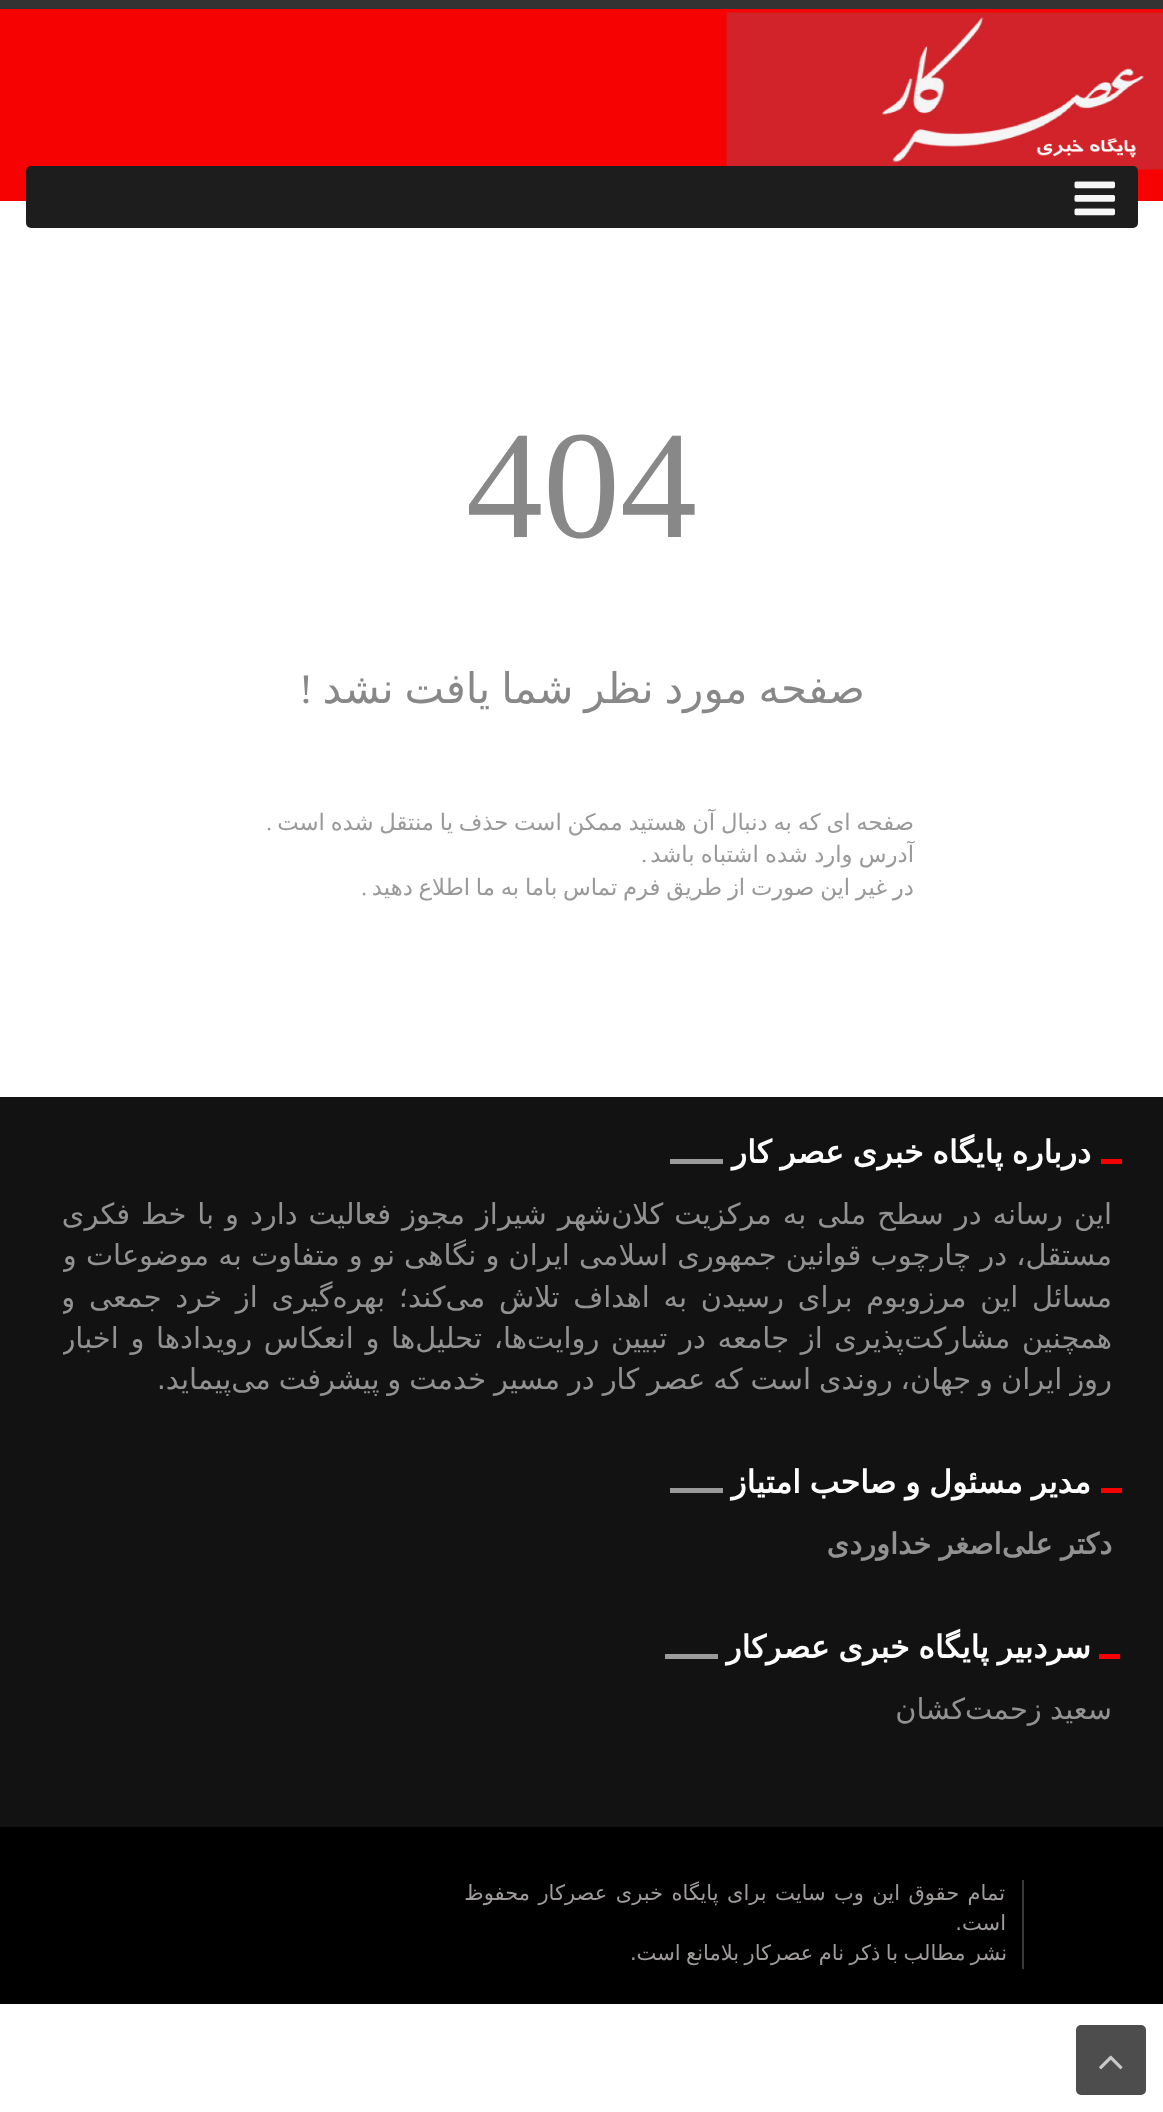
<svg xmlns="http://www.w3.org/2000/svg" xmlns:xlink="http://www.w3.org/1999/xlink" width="1163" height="2112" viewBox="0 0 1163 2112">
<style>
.cls-1{font:154px Liberation Serif;fill:#888888}
.cls-2{font:42px DejaVu Sans;direction:rtl;fill:#888888}
.cls-3{font:42px Liberation Serif;direction:rtl;fill:#888888}
.cls-4{font:22.75px DejaVu Sans;direction:rtl;fill:#999999}
.cls-5{font:22.75px Liberation Serif;direction:rtl;fill:#999999}
.cls-6{font:bold 31.5px DejaVu Sans;direction:rtl;fill:#ffffff}
.cls-7{font:28.9px DejaVu Sans;direction:rtl;fill:#929292}
.cls-8{font:bold 28.9px DejaVu Sans;direction:rtl;fill:#929292}
.cls-9{font:21px DejaVu Sans;direction:rtl;fill:#a19c9c}
</style>
<defs>
<clipPath id="clip1"><rect x="63" y="1194" width="1050" height="224"/></clipPath>
</defs>
<rect width="100%" height="100%" fill="#ffffff"/>
<rect fill="#f70202" x="0" y="9" width="1163" height="192"/>
<rect fill="#333333" x="0" y="0" width="1163" height="9"/>
<image xlink:href="image0.png" x="726" y="12" width="437" height="158"/>
<rect fill="#1d1d1d" x="26" y="166" width="1112" height="62" rx="5"/>
<image xlink:href="image1.png" x="1074" y="181" width="41" height="35"/>
<rect fill="#121212" x="0" y="1097" width="1163" height="730"/>
<rect fill="#f70202" x="1101" y="1159" width="21" height="5"/>
<rect fill="#9a9a9a" x="670" y="1159" width="53" height="5"/>
<rect fill="#f70202" x="1101" y="1488" width="21" height="5"/>
<rect fill="#9a9a9a" x="670" y="1488" width="53" height="5"/>
<rect fill="#f70202" x="1099" y="1654" width="21" height="5"/>
<rect fill="#9a9a9a" x="665" y="1654" width="53" height="5"/>
<rect fill="#000000" x="0" y="1827" width="1163" height="177"/>
<rect fill="#393939" x="1022" y="1880" width="2" height="89"/>
<rect fill="#4d4d4d" x="1076" y="2025" width="70" height="70" rx="5"/>
<image xlink:href="image2.png" x="1099" y="2055" width="24" height="15"/>
<text class="cls-1" x="466" y="537">404</text>
<text class="cls-2" x="865" y="703" word-spacing="-2.5">صفحه مورد نظر شما یافت نشد</text>
<text class="cls-3" x="313" y="703">!</text>
<text class="cls-4" x="914" y="830" word-spacing="-1.5">صفحه ای که به دنبال آن هستید ممکن است حذف یا منتقل شده است</text>
<text class="cls-5" x="272" y="830">.</text>
<text class="cls-4" x="914" y="862" word-spacing="-1">آدرس وارد شده اشتباه باشد</text>
<text class="cls-5" x="647" y="862">.</text>
<text class="cls-4" x="914" y="895" word-spacing="-1.5">در غیر این صورت از طریق فرم تماس باما به ما اطلاع دهید</text>
<text class="cls-5" x="367" y="895">.</text>
<text class="cls-6" x="1091" y="1163" word-spacing="-1.25">درباره پایگاه خبری عصر کار</text>
<text class="cls-7" x="1112" y="1224" word-spacing="1.75">این رسانه در سطح ملی به مرکزیت کلان‌شهر شیراز مجوز فعالیت دارد و با خط فکری</text>
<g clip-path="url(#clip1)">
<text class="cls-7"><tspan x="1112" y="1265">مستقل، در چارچوب قوانین جمهوری اسلامی ایران و نگاهی نو و متفاوت به موضوعات ‌و</tspan><tspan x="1112" y="1307" word-spacing="4.6">مسائل این مرزوبوم برای رسیدن به اهداف تلاش می‌کند؛ بهره‌گیری از خرد جمعی و</tspan><tspan x="1112" y="1348" word-spacing="2.5">همچنین مشارکت‌پذیری از جامعه در تبیین روایت‌ها، تحلیل‌ها و انعکاس رویدادها و اخبار</tspan></text>
</g>
<text class="cls-7" x="1112" y="1389" word-spacing="-1.25">روز ایران و جهان، روندی است که عصر کار در مسیر خدمت و پیشرفت می‌پیماید.</text>
<text class="cls-6" x="1091" y="1493" word-spacing="-1.25">مدیر مسئول و صاحب امتیاز</text>
<text class="cls-8" x="1112" y="1554" word-spacing="-1">دکتر علی‌اصغر خداوردی</text>
<text class="cls-6" x="1091" y="1658" word-spacing="-1.25">سردبیر پایگاه خبری عصرکار</text>
<text class="cls-7" x="1112" y="1719" word-spacing="-1">سعید زحمت‌کشان</text>
<text class="cls-9" x="1005" y="1900" word-spacing="1.75">تمام حقوق این وب سایت برای پایگاه خبری عصرکار محفوظ</text>
<text class="cls-9" x="1006" y="1930">است.</text>
<text class="cls-9" x="1007" y="1960" word-spacing="-1.25">نشر مطالب با ذکر نام عصرکار بلامانع است.</text>
</svg>
